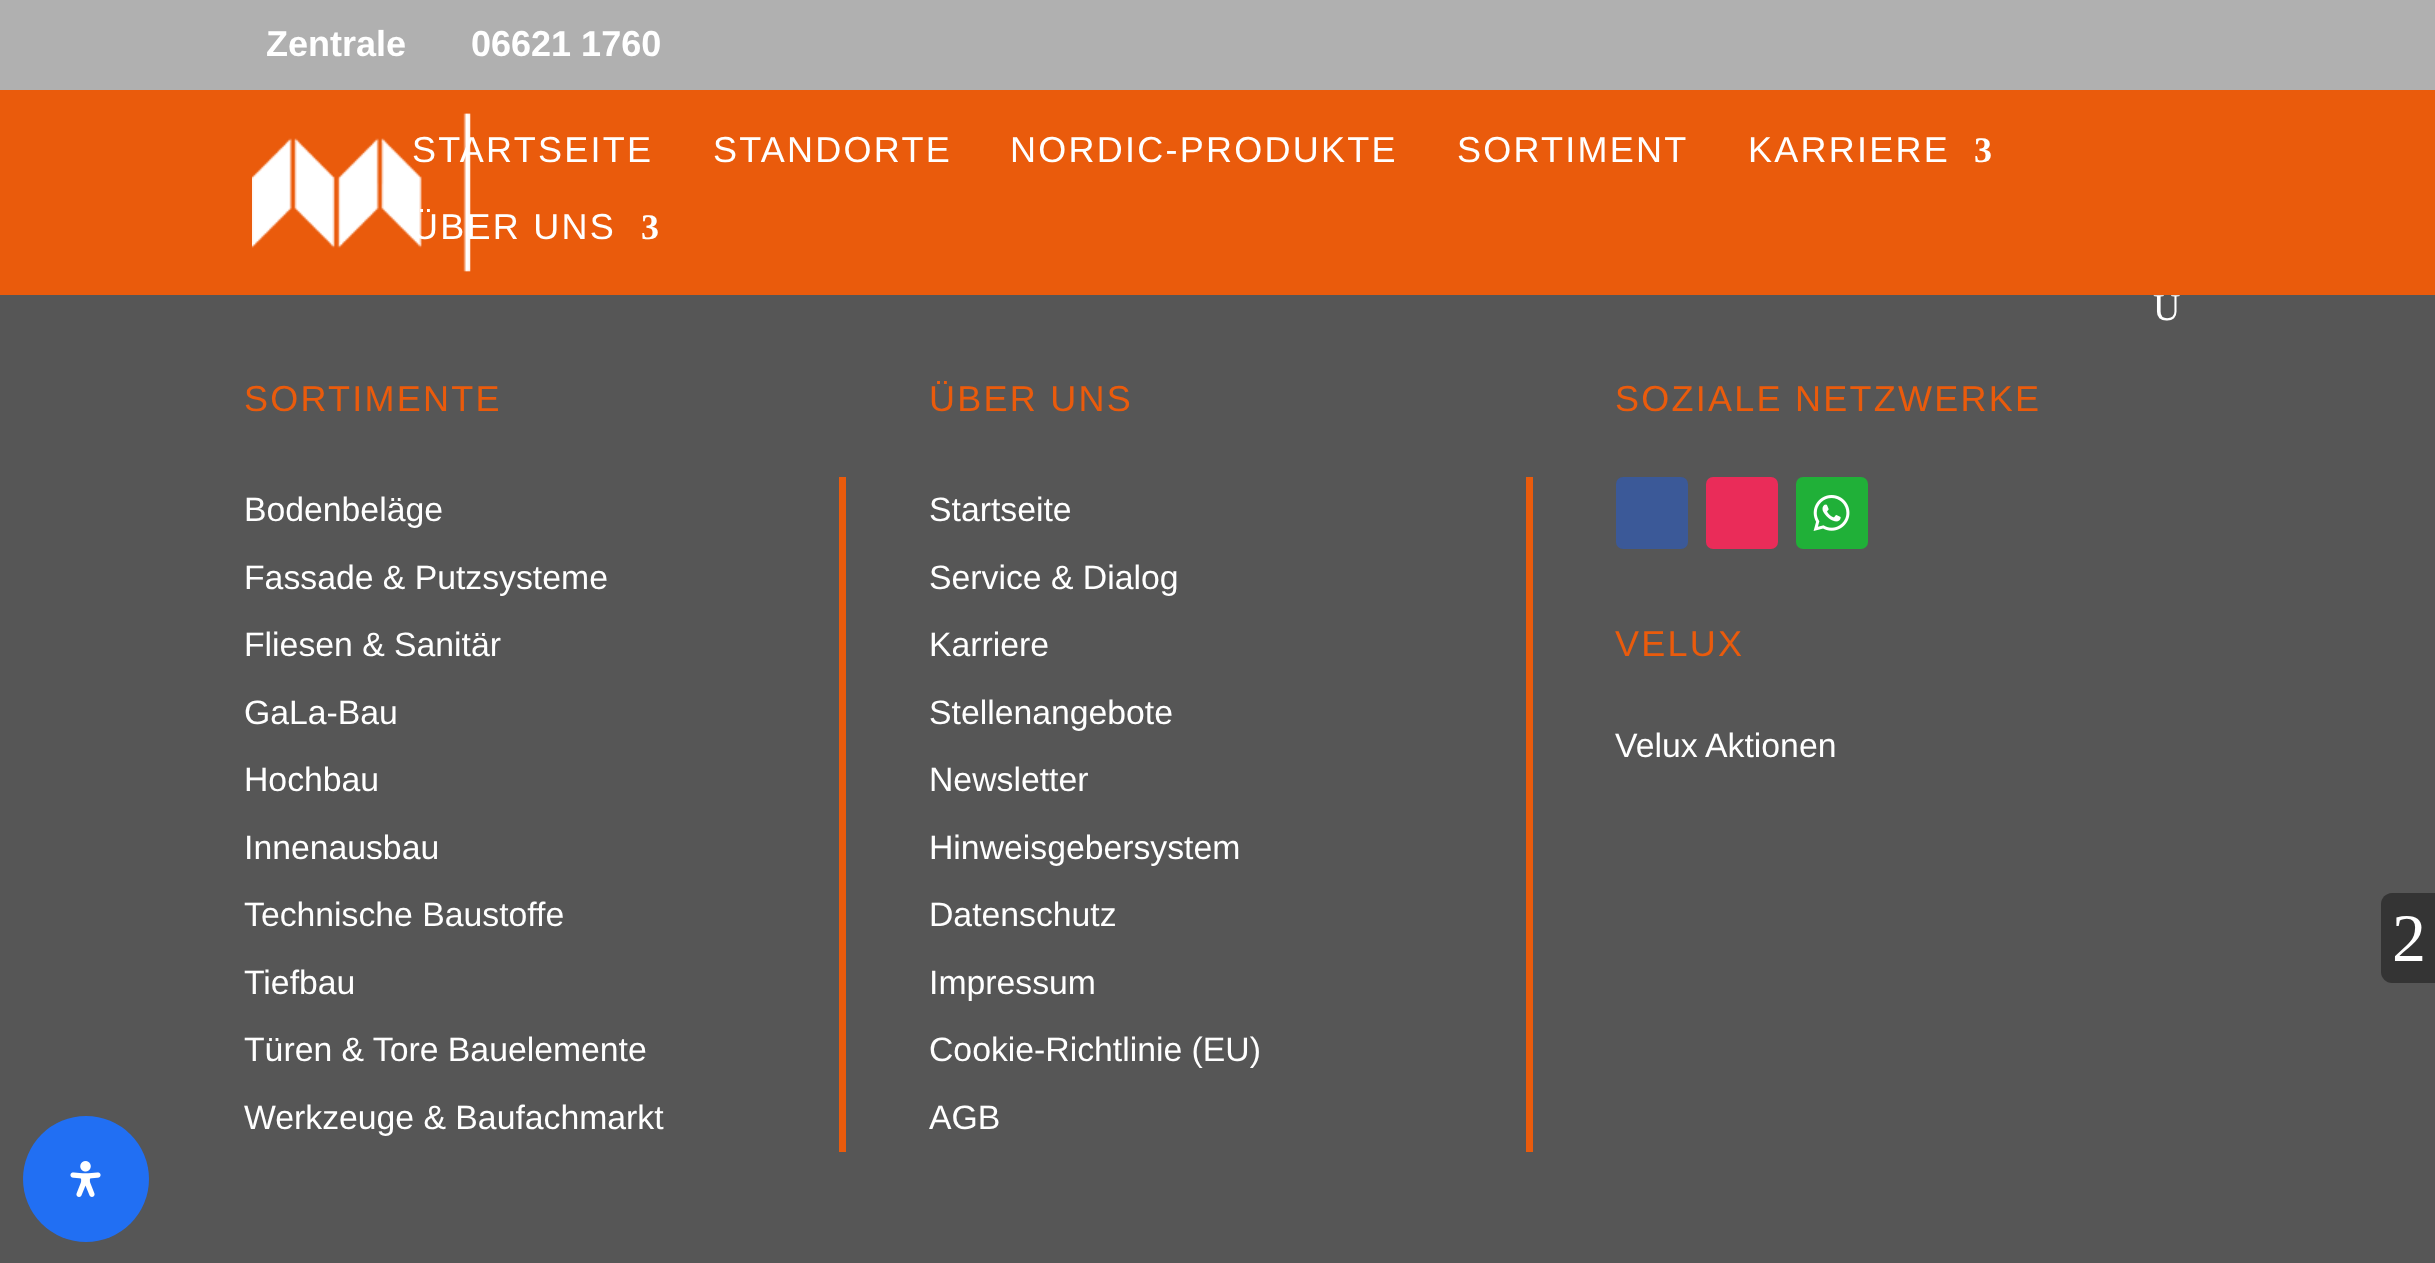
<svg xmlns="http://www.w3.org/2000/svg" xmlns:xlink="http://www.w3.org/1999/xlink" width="2435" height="1263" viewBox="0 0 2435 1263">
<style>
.cls-1{font:bold 36px Liberation Sans;fill:#ffffff}
.cls-2{font:36px Liberation Sans;letter-spacing:2.25px;fill:#ffffff}
.cls-3{font:bold 36px Liberation Serif;letter-spacing:2.25px;fill:#ffffff}
.cls-4{font:38px Liberation Serif;fill:#ffffff}
.cls-5{font:36px Liberation Sans;letter-spacing:2.25px;fill:#ea5b0c}
.cls-6{font:33.75px Liberation Sans;fill:#ffffff}
.cls-7{font:68px Liberation Serif;fill:#ffffff}
</style>
<rect width="100%" height="100%" fill="#565656"/>
<rect fill="#b0b0b0" x="0" y="0" width="2435" height="90"/>
<rect fill="#ea5b0c" x="0" y="90" width="2435" height="205"/>
<image xlink:href="image0.png" x="252" y="113" width="219" height="159"/>
<rect fill="#ea5b0c" x="839" y="477" width="7" height="675"/>
<rect fill="#ea5b0c" x="1526" y="477" width="7" height="675"/>
<rect fill="#3b5998" x="1616" y="477" width="72" height="72" rx="7"/>
<rect fill="#ea2c59" x="1706" y="477" width="72" height="72" rx="7"/>
<rect fill="#20b038" x="1796" y="477" width="72" height="72" rx="7"/>
<image xlink:href="image1.png" x="1813" y="495" width="37" height="36"/>
<path fill="#343434" d="M2392 893H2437V983H2392C2386 983 2381 978 2381 972V904C2381 898 2386 893 2392 893Z"/>
<circle fill="#216ff3" cx="86" cy="1179" r="63"/>
<image xlink:href="image2.png" x="70" y="1161" width="31" height="36"/>
<text class="cls-1" x="266" y="56">Zentrale</text>
<text class="cls-1" x="471" y="56">06621 1760</text>
<text class="cls-2" x="412" y="162">STARTSEITE</text>
<text class="cls-2" x="713" y="162">STANDORTE</text>
<text class="cls-2" x="1010" y="162">NORDIC-PRODUKTE</text>
<text class="cls-2" x="1457" y="162">SORTIMENT</text>
<text class="cls-2" x="1748" y="162">KARRIERE</text>
<text class="cls-3" x="1974" y="162">3</text>
<text class="cls-2" x="412" y="239">ÜBER UNS</text>
<text class="cls-3" x="641" y="239">3</text>
<text class="cls-4" x="2153" y="320">U</text>
<text class="cls-5" x="244" y="411">SORTIMENTE</text>
<text class="cls-6" x="244" y="521">Bodenbeläge</text>
<text class="cls-6"><tspan x="244" y="589">Fassade &amp; Putzsysteme</tspan><tspan x="244" y="656">Fliesen &amp; Sanitär</tspan></text>
<text class="cls-6"><tspan x="244" y="724">GaLa-Bau</tspan><tspan x="244" y="791">Hochbau</tspan></text>
<text class="cls-6"><tspan x="244" y="859">Innenausbau</tspan><tspan x="244" y="926">Technische Baustoffe</tspan></text>
<text class="cls-6"><tspan x="244" y="994">Tiefbau</tspan><tspan x="244" y="1061">Türen &amp; Tore Bauelemente</tspan></text>
<text class="cls-6" x="244" y="1129">Werkzeuge &amp; Baufachmarkt</text>
<text class="cls-5" x="929" y="411">ÜBER UNS</text>
<text class="cls-6" x="929" y="521">Startseite</text>
<text class="cls-6"><tspan x="929" y="589">Service &amp; Dialog</tspan><tspan x="929" y="656">Karriere</tspan></text>
<text class="cls-6"><tspan x="929" y="724">Stellenangebote</tspan><tspan x="929" y="791">Newsletter</tspan></text>
<text class="cls-6"><tspan x="929" y="859">Hinweisgebersystem</tspan><tspan x="929" y="926">Datenschutz</tspan></text>
<text class="cls-6"><tspan x="929" y="994">Impressum</tspan><tspan x="929" y="1061">Cookie-Richtlinie (EU)</tspan></text>
<text class="cls-6" x="929" y="1129">AGB</text>
<text class="cls-5" x="1615" y="411">SOZIALE NETZWERKE</text>
<text class="cls-5" x="1615" y="656">VELUX</text>
<text class="cls-6" x="1615" y="757">Velux Aktionen</text>
<text class="cls-7" x="2392" y="961">2</text>
</svg>
